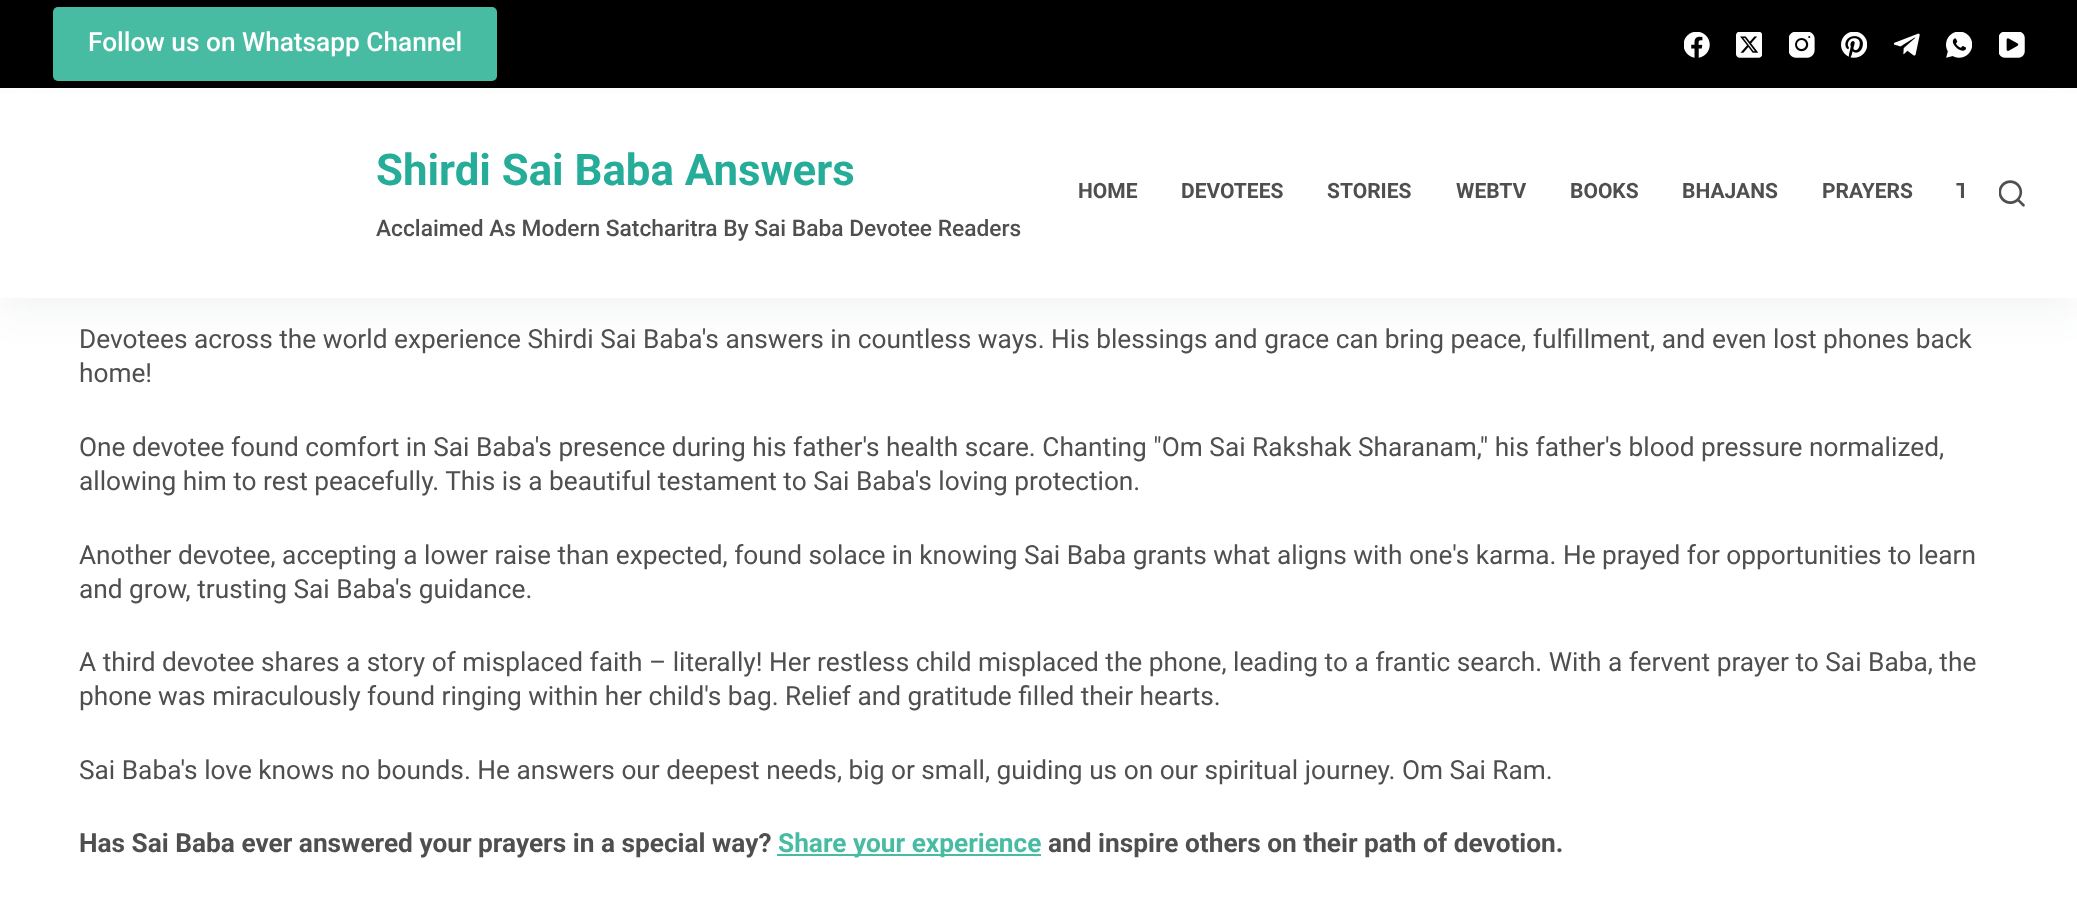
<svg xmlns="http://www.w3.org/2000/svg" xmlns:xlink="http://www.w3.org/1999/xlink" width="2077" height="915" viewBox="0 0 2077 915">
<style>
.cls-1{font:500 26.25px Roboto;fill:#ffffff}
.cls-2{font:bold 43.75px Roboto;fill:#25ad99}
.cls-3{font:500 22.75px Roboto;fill:#4f4f4f}
.cls-4{font:bold 21px Roboto;fill:#4f4f4f}
.cls-5{font:26.25px Roboto;fill:#4f4f4f}
.cls-6{font:bold 26.25px Roboto;fill:#4f4f4f}
.cls-7{font:bold 26.25px Roboto;fill:#48bca2}
</style>
<defs>
<clipPath id="clip1"><rect x="1057" y="88" width="907" height="210"/></clipPath>
</defs>
<rect width="100%" height="100%" fill="#ffffff"/>
<rect fill="#2c3e50" fill-opacity="0.05" filter="blur(17.5px)" x="0" y="105" width="2077" height="210"/>
<rect fill="#000000" x="0" y="0" width="2077" height="88"/>
<rect fill="#48bca2" x="53" y="7" width="444" height="74" rx="5"/>
<image xlink:href="image0.png" x="1684" y="32" width="26" height="26"/>
<image xlink:href="image1.png" x="1736" y="32" width="26" height="26"/>
<image xlink:href="image2.png" x="1789" y="32" width="26" height="26"/>
<image xlink:href="image3.png" x="1841" y="32" width="26" height="26"/>
<image xlink:href="image4.png" x="1894" y="33" width="26" height="23"/>
<image xlink:href="image5.png" x="1946" y="32" width="26" height="26"/>
<image xlink:href="image6.png" x="1999" y="32" width="26" height="26"/>
<rect fill="#ffffff" x="0" y="93" width="2077" height="205"/>
<image xlink:href="image7.png" x="1999" y="180" width="26" height="27"/>
<rect fill="#48bca2" x="777" y="854" width="264" height="2"/>
<text class="cls-1" x="88" y="51">Follow us on Whatsapp Channel</text>
<text class="cls-2" x="376" y="185">Shirdi Sai Baba Answers</text>
<text class="cls-3" x="376" y="236">Acclaimed As Modern Satcharitra By Sai Baba Devotee Readers</text>
<text class="cls-4" x="1078" y="198">HOME</text>
<text class="cls-4" x="1181" y="198">DEVOTEES</text>
<text class="cls-4" x="1327" y="198">STORIES</text>
<text class="cls-4" x="1456" y="198">WEBTV</text>
<text class="cls-4" x="1570" y="198">BOOKS</text>
<text class="cls-4" x="1682" y="198">BHAJANS</text>
<text class="cls-4" x="1822" y="198">PRAYERS</text>
<g clip-path="url(#clip1)">
<text class="cls-4" x="1956" y="198">T</text>
</g>
<text class="cls-5"><tspan x="79" y="348">Devotees across the world experience Shirdi Sai Baba's answers in countless ways. His blessings and grace can bring peace, fulfillment, and even lost phones back</tspan><tspan x="79" y="382">home!</tspan></text>
<text class="cls-5"><tspan x="79" y="456">One devotee found comfort in Sai Baba's presence during his father's health scare. Chanting "Om Sai Rakshak Sharanam," his father's blood pressure normalized,</tspan><tspan x="79" y="490">allowing him to rest peacefully. This is a beautiful testament to Sai Baba's loving protection.</tspan></text>
<text class="cls-5"><tspan x="79" y="564">Another devotee, accepting a lower raise than expected, found solace in knowing Sai Baba grants what aligns with one's karma. He prayed for opportunities to learn</tspan><tspan x="79" y="598">and grow, trusting Sai Baba's guidance.</tspan></text>
<text class="cls-5"><tspan x="79" y="671">A third devotee shares a story of misplaced faith – literally! Her restless child misplaced the phone, leading to a frantic search. With a fervent prayer to Sai Baba, the</tspan><tspan x="79" y="705">phone was miraculously found ringing within her child's bag. Relief and gratitude filled their hearts.</tspan></text>
<text class="cls-5" x="79" y="779">Sai Baba's love knows no bounds. He answers our deepest needs, big or small, guiding us on our spiritual journey. Om Sai Ram.</text>
<text class="cls-6" x="79" y="852">Has Sai Baba ever answered your prayers in a special way?</text>
<text class="cls-7" x="778" y="852">Share your experience</text>
<text class="cls-6" x="1048" y="852">and inspire others on their path of devotion.</text>
</svg>
